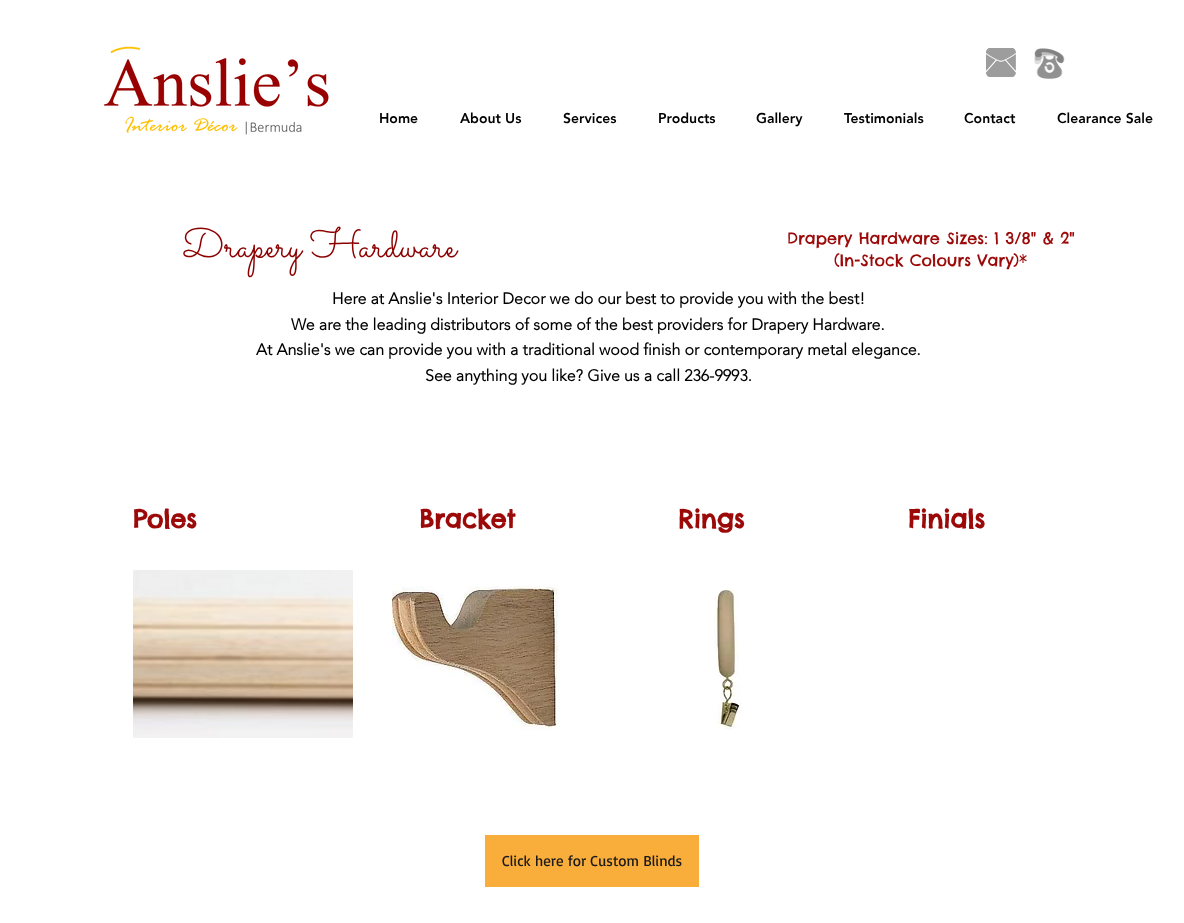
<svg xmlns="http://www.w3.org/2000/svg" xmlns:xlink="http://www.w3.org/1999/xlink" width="1184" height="923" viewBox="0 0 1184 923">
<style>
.cls-1{font:900 14px 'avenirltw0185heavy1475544';fill:#000000}
.cls-2{font:41px Sacramento;fill:#8b0000}
.cls-3{font:16px Chelsea Market;fill:#9b0909}
.cls-4{font:bold 16px 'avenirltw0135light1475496';fill:#000000}
.cls-5{font:bold 25px Chelsea Market;fill:#9b0909}
.cls-6{font:15px Basic;fill:#1a1a1a}
</style>
<rect width="100%" height="100%" fill="#ffffff"/>
<image xlink:href="image0.png" x="104" y="46" width="225" height="89"/>
<image xlink:href="image1.png" x="986" y="48" width="30" height="29"/>
<image xlink:href="image2.png" x="1034" y="48" width="31" height="31"/>
<image xlink:href="image3.png" x="133" y="570" width="220" height="168"/>
<image xlink:href="image4.png" x="392" y="586" width="168" height="144"/>
<image xlink:href="image5.png" x="714" y="589" width="28" height="141"/>
<rect fill="#f9ad3b" x="485" y="835" width="214" height="52"/>
<text class="cls-1" x="379" y="123">Home</text>
<text class="cls-1" x="460" y="123">About Us</text>
<text class="cls-1" x="563" y="123">Services</text>
<text class="cls-1" x="658" y="123">Products</text>
<text class="cls-1" x="756" y="123">Gallery</text>
<text class="cls-1" x="844" y="123">Testimonials</text>
<text class="cls-1" x="964" y="123">Contact</text>
<text class="cls-1" x="1057" y="123">Clearance Sale</text>
<text class="cls-2" x="182" y="257">Drapery Hardware</text>
<text class="cls-3" x="787" y="244">Drapery Hardware Sizes: 1 3/8" &amp; 2"</text>
<text class="cls-3" x="834" y="266">(In-Stock Colours Vary)*</text>
<text class="cls-4" x="332" y="304">Here at Anslie's Interior Decor we do our best to provide you with the best!</text>
<text class="cls-4" x="291" y="330">We are the leading distributors of some of the best providers for Drapery Hardware.</text>
<text class="cls-4" x="256" y="355">At Anslie's we can provide you with a traditional wood finish or contemporary metal elegance.</text>
<text class="cls-4" x="425" y="381">See anything you like? Give us a call 236-9993.</text>
<text class="cls-5" x="133" y="528">Poles</text>
<text class="cls-5" x="419" y="528">Bracket</text>
<text class="cls-5" x="678" y="528">Rings</text>
<text class="cls-5" x="908" y="528">Finials</text>
<text class="cls-6" x="502" y="866">Click here for Custom Blinds</text>
</svg>
